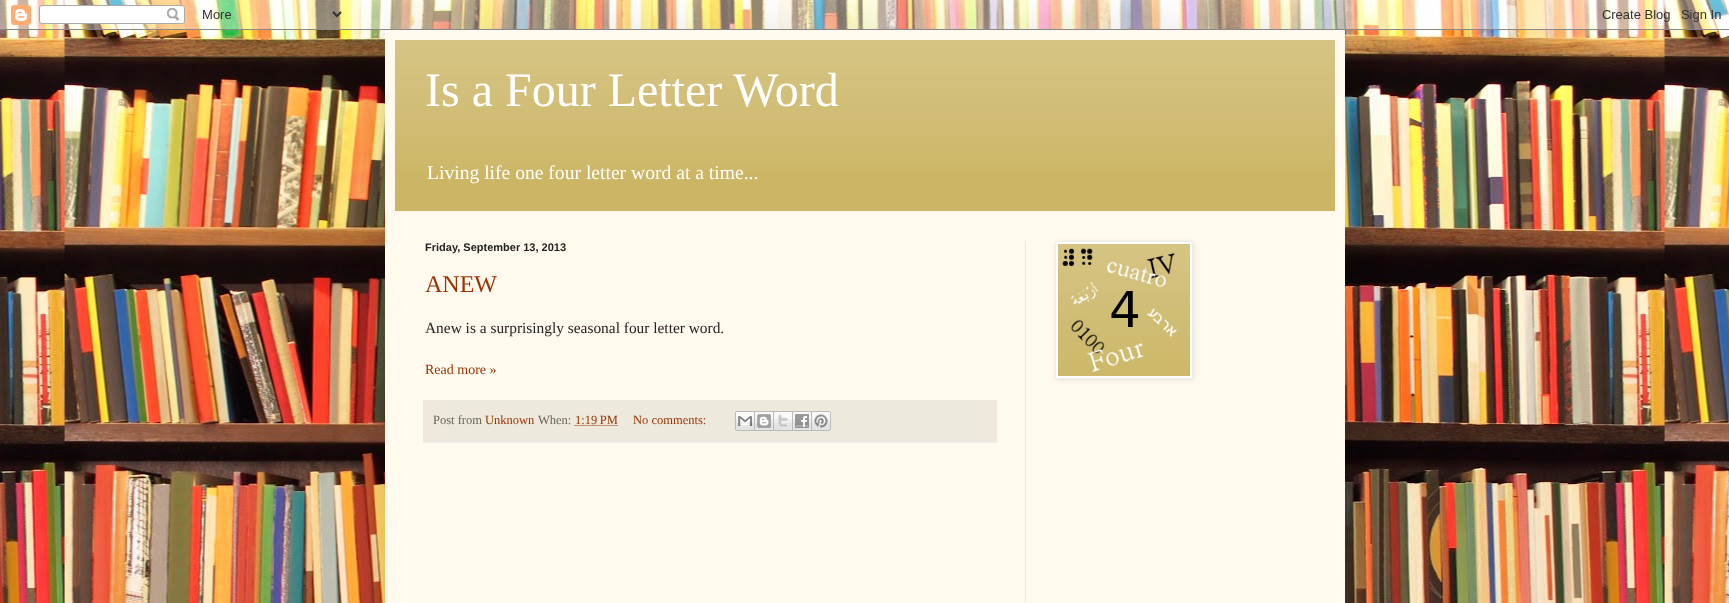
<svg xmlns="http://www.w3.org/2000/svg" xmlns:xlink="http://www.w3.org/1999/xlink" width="1729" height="603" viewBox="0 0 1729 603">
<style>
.cls-1{font:48px Liberation Serif;fill:#ffffff}
.cls-2{font:19.6px Liberation Serif;fill:#ffffff}
.cls-3{font:bold 11px Liberation Sans;fill:#222222}
.cls-4{font:24px Liberation Serif;fill:#993300}
.cls-5{font:15.4px Liberation Serif;fill:#222222}
.cls-6{font:14px Liberation Serif;fill:#993300}
.cls-7{font:12.5px Liberation Serif;fill:#666555}
.cls-8{font:12.5px Liberation Serif;fill:#993300}
</style>
<rect width="100%" height="100%" fill="#ffffff"/>
<image xlink:href="image0.png" x="0" y="0" width="1729" height="603"/>
<rect fill="#000000" fill-opacity="0.15" filter="blur(20px)" x="385" y="30" width="960" height="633"/>
<image xlink:href="image1.png" x="0" y="0" width="1729" height="30"/>
<rect fill="#fff9ee" x="385" y="30" width="960" height="573"/>
<rect fill="#ccb666" x="395" y="40" width="940" height="171"/>
<image xlink:href="image2.png" x="395" y="40" width="940" height="130"/>
<rect fill="#eee9dd" x="423" y="400" width="574" height="42"/>
<rect fill="#eeeeee" x="423" y="442" width="574" height="1"/>
<path fill="none" stroke="#993300" stroke-dasharray="1 1" d="M574.5 425.5H617.5"/>
<image xlink:href="image3.png" x="735" y="411" width="20" height="20"/>
<image xlink:href="image4.png" x="755" y="411" width="19" height="20"/>
<image xlink:href="image5.png" x="774" y="411" width="19" height="20"/>
<image xlink:href="image6.png" x="793" y="411" width="19" height="20"/>
<image xlink:href="image7.png" x="812" y="411" width="19" height="20"/>
<rect fill="#000000" fill-opacity="0.1" filter="blur(2.5px)" x="1056" y="242" width="138" height="138"/>
<rect fill="#ffffff" stroke="#eeeeee" x="1055.5" y="241.5" width="137" height="137"/>
<image xlink:href="image8.png" x="1058" y="244" width="132" height="132"/>
<rect fill="#eee5dd" x="1025" y="241" width="1" height="362"/>
<text class="cls-1" x="425" y="106">Is a Four Letter Word</text>
<text class="cls-2" x="427" y="179">Living life one four letter word at a time...</text>
<text class="cls-3" x="425" y="251">Friday, September 13, 2013</text>
<text class="cls-4" x="425" y="292">ANEW</text>
<text class="cls-5" x="425" y="333">Anew is a surprisingly seasonal four letter word.</text>
<text class="cls-6" x="425" y="374">Read more »</text>
<text class="cls-7" x="433" y="424">Post from</text>
<text class="cls-8" x="485" y="424">Unknown</text>
<text class="cls-7" x="538" y="424">When:</text>
<text class="cls-8" x="575" y="424">1:19 PM</text>
<text class="cls-8" x="633" y="424">No comments:</text>
</svg>
